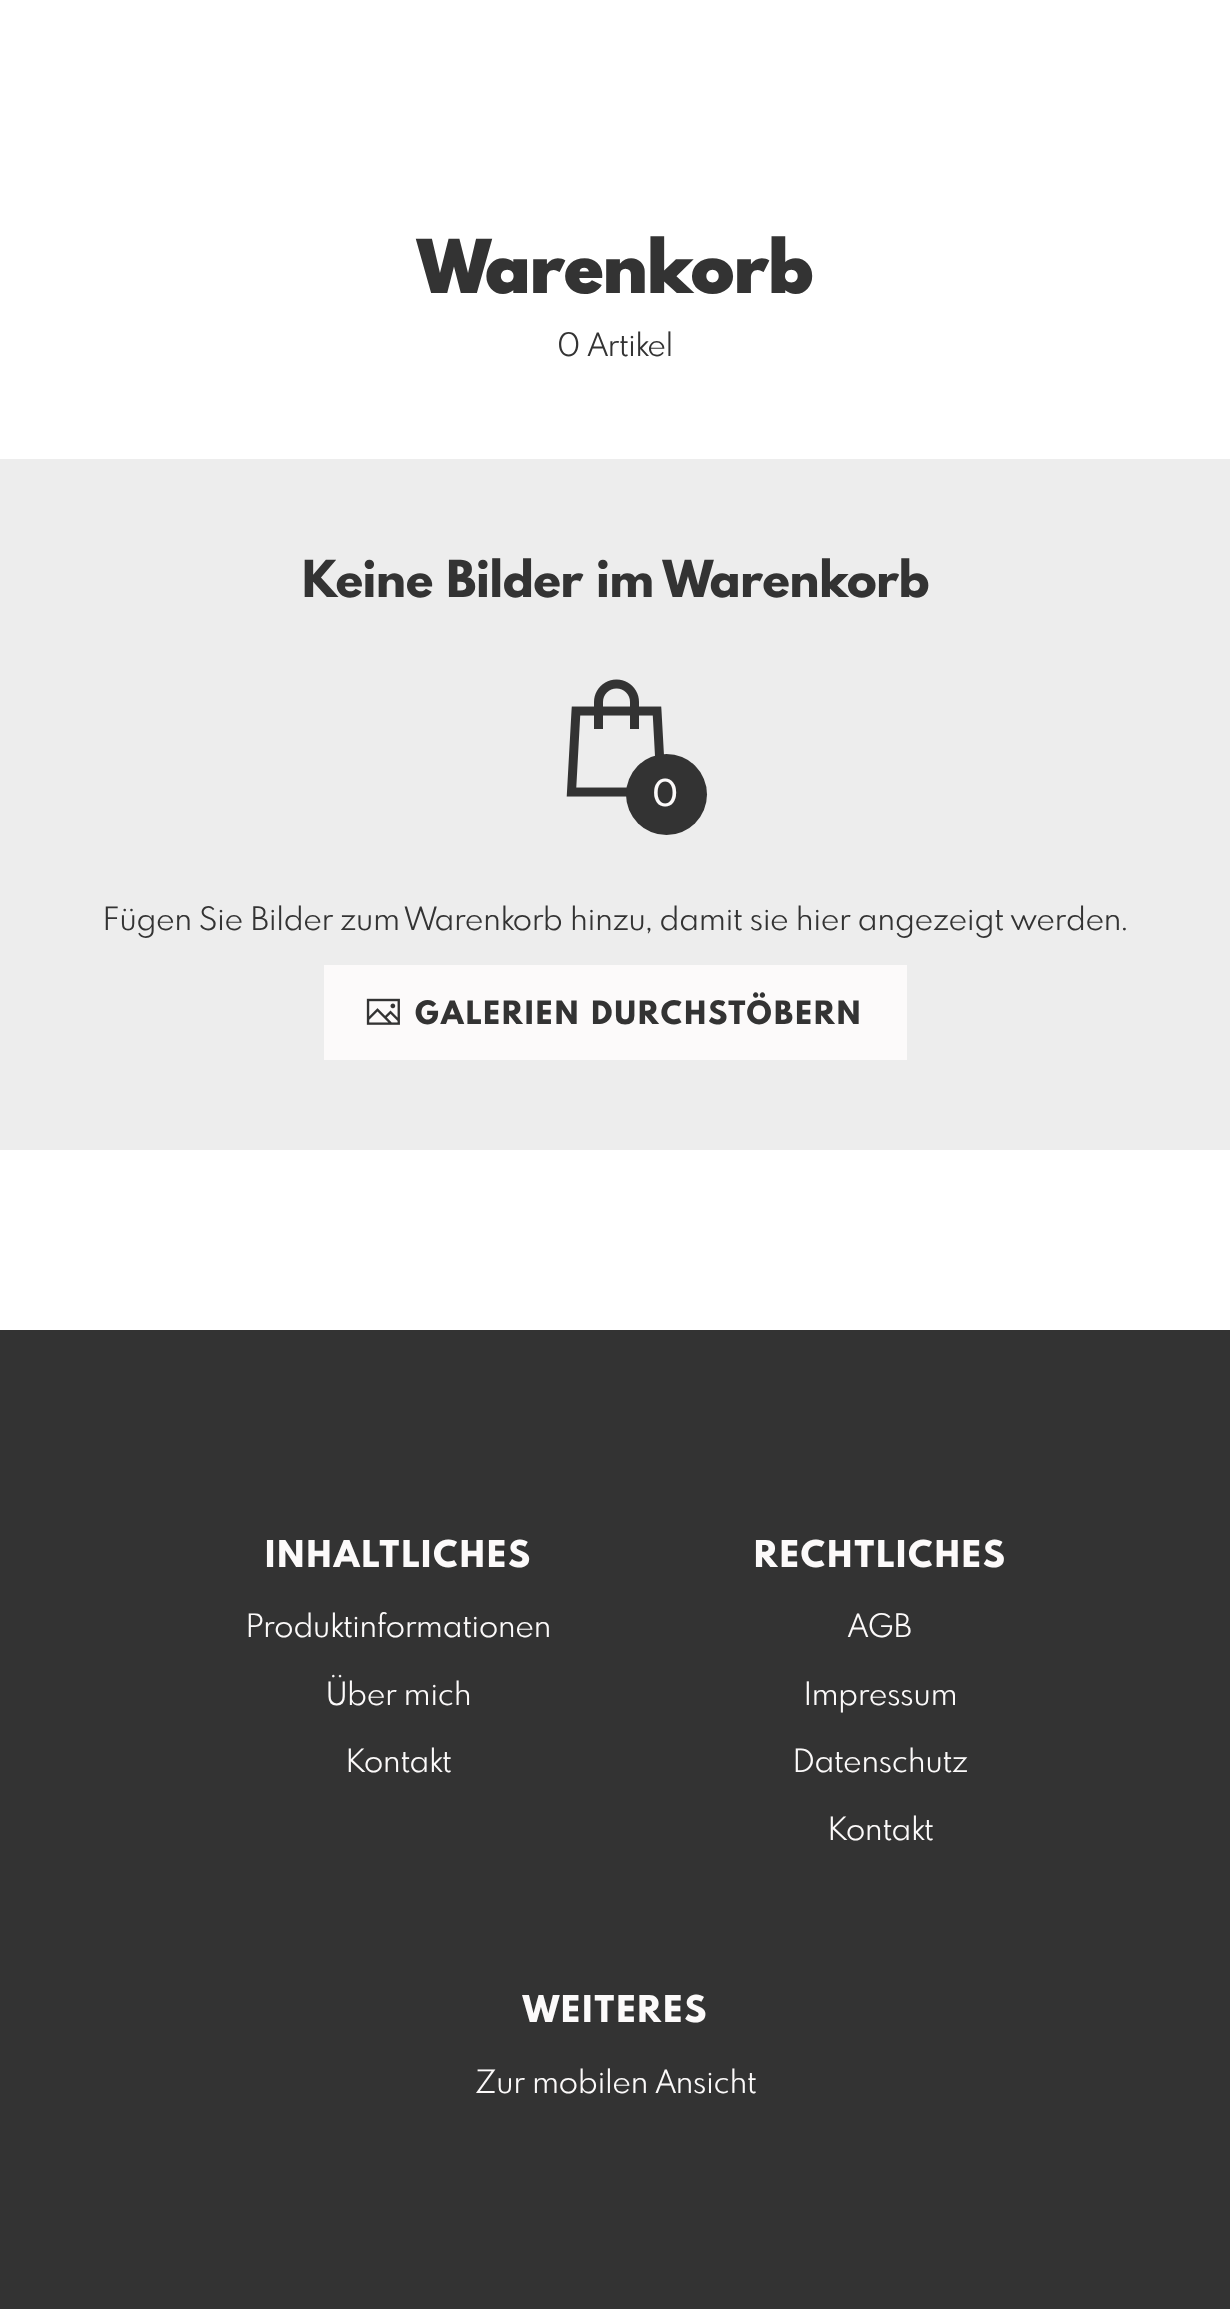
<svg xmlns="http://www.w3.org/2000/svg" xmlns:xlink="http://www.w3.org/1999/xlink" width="1230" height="2309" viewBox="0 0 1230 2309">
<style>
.cls-1{font:900 72.5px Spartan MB;fill:#333333}
.cls-2{font:31.5px Spartan MB;fill:#333333}
.cls-3{font:800 49.6px Spartan MB;fill:#333333}
.cls-4{font:500 36px Spartan MB;fill:#fcfafa}
.cls-5{font:800 31.5px Spartan MB;letter-spacing:2.25px;fill:#333333}
.cls-6{font:800 36px Spartan MB;letter-spacing:2.25px;fill:#fcfafa}
.cls-7{font:31.5px Spartan MB;fill:#fcfafa}
</style>
<rect width="100%" height="100%" fill="#333333"/>
<rect fill="#ffffff" x="0" y="0" width="1230" height="1330"/>
<rect fill="#ededed" x="0" y="459" width="1230" height="691"/>
<image xlink:href="image0.png" x="566" y="679" width="98" height="118"/>
<circle fill="#333333" cx="666.5" cy="794.5" r="40.5"/>
<rect fill="#fcfafa" x="324" y="965" width="583" height="95"/>
<image xlink:href="image1.png" x="366" y="998" width="34" height="27"/>
<text class="cls-1" x="418" y="293">Warenkorb</text>
<text class="cls-2" x="557" y="356">0 Artikel</text>
<text class="cls-3" x="302" y="597">Keine Bilder im Warenkorb</text>
<text class="cls-4" x="652" y="806">0</text>
<text class="cls-2" x="103" y="930">Fügen Sie Bilder zum Warenkorb hinzu, damit sie hier angezeigt werden.</text>
<text class="cls-5" x="415" y="1024">GALERIEN DURCHSTÖBERN</text>
<text class="cls-6" x="265" y="1567">INHALTLICHES</text>
<text class="cls-7" x="246" y="1637">Produktinformationen</text>
<text class="cls-7" x="326" y="1705">Über mich</text>
<text class="cls-7" x="346" y="1772">Kontakt</text>
<text class="cls-6" x="754" y="1567">RECHTLICHES</text>
<text class="cls-7" x="848" y="1637">AGB</text>
<text class="cls-7" x="804" y="1705">Impressum</text>
<text class="cls-7" x="793" y="1772">Datenschutz</text>
<text class="cls-7" x="828" y="1840">Kontakt</text>
<text class="cls-6" x="523" y="2022">WEITERES</text>
<text class="cls-7" x="475" y="2093">Zur mobilen Ansicht</text>
</svg>
